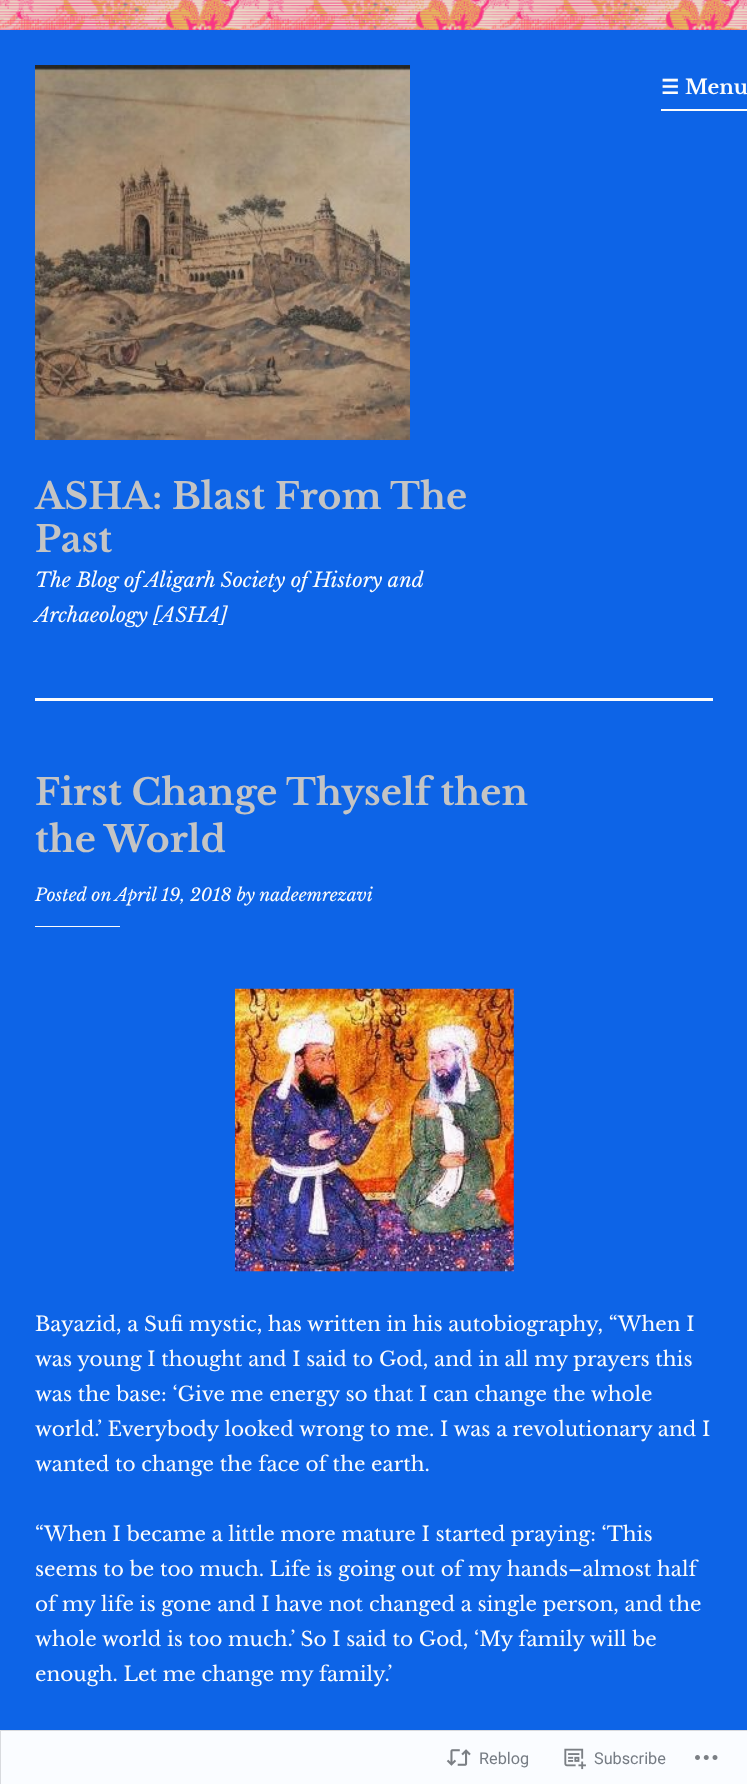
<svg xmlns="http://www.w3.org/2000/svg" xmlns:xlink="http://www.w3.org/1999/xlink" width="747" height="1784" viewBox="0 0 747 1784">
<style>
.cls-1{font:bold 20px DejaVu Sans;fill:#fcfcfc}
.cls-2{font:bold 20px Libre Baskerville;fill:#fcfcfc}
.cls-3{font:bold 36.25px Libre Baskerville;fill:#c4c4c4}
.cls-4{font:italic 20px Libre Baskerville;fill:#fcfcfc}
.cls-5{font:italic 17.5px Libre Baskerville;fill:#fcfcfc}
.cls-6{font:20px Libre Baskerville;fill:#fcfcfc}
.cls-7{font:16.25px Roboto;fill:#767c84}
</style>
<rect width="100%" height="100%" fill="#ffffff"/>
<image xlink:href="image0.png" x="0" y="0" width="747" height="30"/>
<rect fill="#0d64e7" x="0" y="30" width="747" height="1754"/>
<rect fill="#fcfcfc" x="35" y="698" width="678" height="3"/>
<path fill="#fcfcfc" d="M661 68V111H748V68V109H661Z"/>
<image xlink:href="image1.png" x="35" y="65" width="375" height="375"/>
<rect fill="#fcfcfc" x="35" y="926" width="85" height="1"/>
<image xlink:href="image2.png" x="235" y="988" width="279" height="284"/>
<rect fill="#ffffff" fill-opacity="0.98" stroke="#d8dade" x="0.5" y="1730.5" width="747" height="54"/>
<image xlink:href="image3.png" x="446" y="1749" width="25" height="17"/>
<image xlink:href="image4.png" x="564" y="1748" width="22" height="22"/>
<image xlink:href="image5.png" x="695" y="1755" width="23" height="5"/>
<text class="cls-1" x="661" y="94">☰</text>
<text class="cls-2" x="685" y="94">Menu</text>
<text class="cls-3"><tspan x="35" y="509">ASHA: Blast From The</tspan><tspan x="35" y="552">Past</tspan></text>
<text class="cls-4"><tspan x="35" y="587">The Blog of Aligarh Society of History and</tspan><tspan x="35" y="622">Archaeology [ASHA]</tspan></text>
<text class="cls-3"><tspan x="35" y="805">First Change Thyself then</tspan><tspan x="35" y="852">the World</tspan></text>
<text class="cls-5" x="35" y="901">Posted on</text>
<text class="cls-5" x="115" y="901">April 19, 2018 by nadeemrezavi</text>
<text class="cls-6"><tspan x="35" y="1331">Bayazid, a Sufi mystic, has written in his autobiography, “When I</tspan><tspan x="35" y="1366">was young I thought and I said to God, and in all my prayers this</tspan><tspan x="35" y="1401">was the base: ‘Give me energy so that I can change the whole</tspan><tspan x="35" y="1436">world.’ Everybody looked wrong to me. I was a revolutionary and I</tspan><tspan x="35" y="1471">wanted to change the face of the earth.</tspan></text>
<text class="cls-6"><tspan x="35" y="1541">“When I became a little more mature I started praying: ‘This</tspan><tspan x="35" y="1576">seems to be too much. Life is going out of my hands–almost half</tspan><tspan x="35" y="1611">of my life is gone and I have not changed a single person, and the</tspan><tspan x="35" y="1646">whole world is too much.’ So I said to God, ‘My family will be</tspan><tspan x="35" y="1681">enough. Let me change my family.’</tspan></text>
<text class="cls-7" x="479" y="1764">Reblog</text>
<text class="cls-7" x="594" y="1764">Subscribe</text>
</svg>
